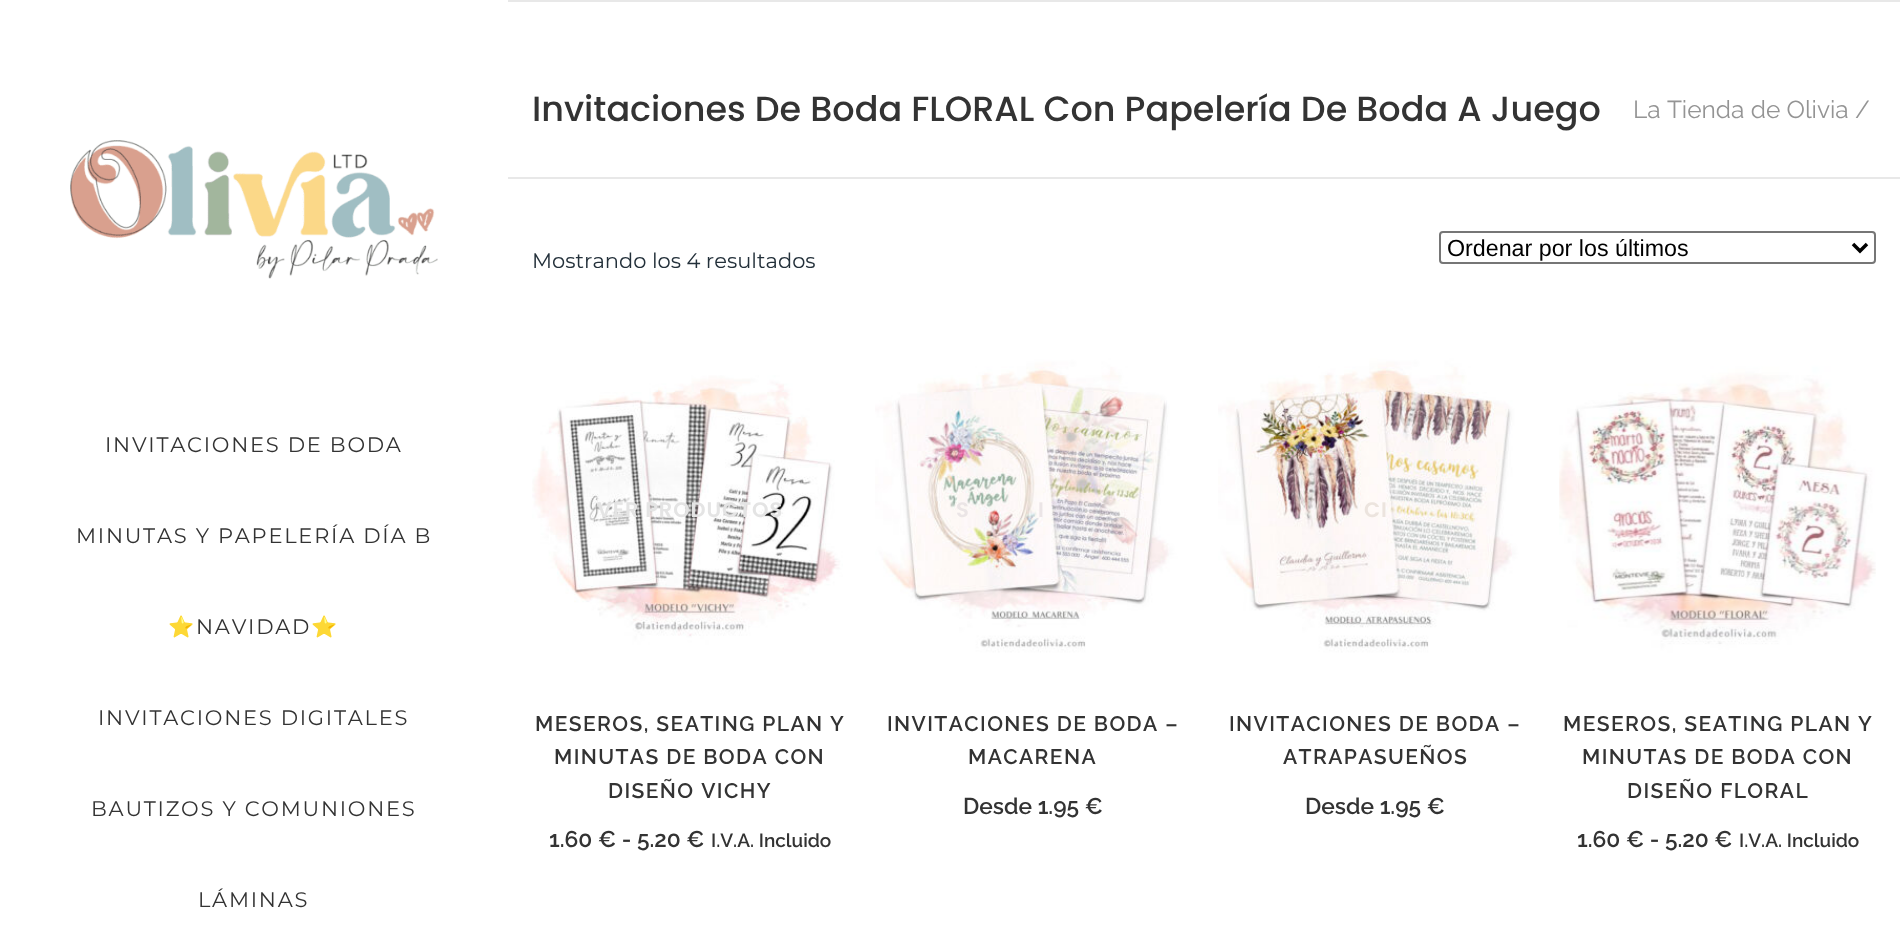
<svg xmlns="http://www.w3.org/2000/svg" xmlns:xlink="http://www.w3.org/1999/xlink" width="1900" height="950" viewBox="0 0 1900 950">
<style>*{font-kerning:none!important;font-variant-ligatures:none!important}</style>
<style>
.cls-1{font:21px Montserrat;letter-spacing:1.75px;fill:#333333}
.cls-2{font:21px Noto Color Emoji;letter-spacing:1.75px;fill:#333333}
.cls-3{font:500 35px Poppins;fill:#333333}
.cls-4{font:24.5px Raleway;fill:#949494}
.cls-5{font:21px Montserrat;fill:#23303a}
.cls-6{font:23.25px Liberation Sans;fill:#000000}
.cls-7{font:600 21px Poppins;letter-spacing:0.9px;fill:#e4e4e4}
.cls-8{font:600 21px Raleway;letter-spacing:1.4px;fill:#333333}
.cls-9{font:600 22.75px Raleway;fill:#333333}
.cls-10{font:600 19px Raleway;fill:#333333}
.cls-11{font:600 21px Poppins;letter-spacing:0.9px;fill:#ebe5e6}
.cls-12{font:600 21px Poppins;letter-spacing:0.9px;fill:#ece4de}
</style>
<rect width="100%" height="100%" fill="#ffffff"/>
<image xlink:href="image0.png" x="70" y="140" width="368" height="139"/>
<rect fill="#e8e8e8" x="508" y="0" width="1392" height="2"/>
<rect fill="#e8e8e8" x="508" y="177" width="1392" height="2"/>
<rect fill="none" stroke="#767676" stroke-width="2" x="1440" y="232" width="435" height="31" rx="3"/>
<path fill="none" stroke="#000000" stroke-width="3.5" d="M1853 244L1860 251L1867 244"/>
<image xlink:href="image1.png" x="532" y="350" width="315" height="315"/>
<image xlink:href="image2.png" x="875" y="350" width="315" height="315"/>
<image xlink:href="image3.png" x="1218" y="350" width="315" height="315"/>
<image xlink:href="image4.png" x="1559" y="350" width="317" height="315"/>
<text class="cls-1" x="105" y="452">INVITACIONES DE BODA</text>
<text class="cls-1" x="76" y="543">MINUTAS Y PAPELERÍA DÍA B</text>
<text class="cls-2" x="168" y="634">⭐</text>
<text class="cls-1" x="196" y="634">NAVIDAD</text>
<text class="cls-2" x="311" y="634">⭐</text>
<text class="cls-1" x="98" y="725">INVITACIONES DIGITALES</text>
<text class="cls-1" x="91" y="816">BAUTIZOS Y COMUNIONES</text>
<text class="cls-1" x="198" y="907">LÁMINAS</text>
<text class="cls-3" x="532" y="121">Invitaciones De Boda FLORAL Con Papelería De Boda A Juego</text>
<text class="cls-4" x="1633" y="118">La Tienda de Olivia /</text>
<text class="cls-5" x="532" y="268">Mostrando los 4 resultados</text>
<text class="cls-6" x="1447" y="256">Ordenar por los últimos</text>
<text class="cls-7" x="597" y="517">VER PRODUCTOS</text>
<text class="cls-8" x="535" y="731">MESEROS, SEATING PLAN Y</text>
<text class="cls-8" x="554" y="764">MINUTAS DE BODA CON</text>
<text class="cls-8" x="608" y="798">DISEÑO VICHY</text>
<text class="cls-9" x="549" y="847">1.60 € - 5.20 €</text>
<text class="cls-10" x="711" y="847">I.V.A. Incluido</text>
<text class="cls-11" x="956" y="517">S</text>
<text class="cls-11" x="1038" y="517">I</text>
<text class="cls-8" x="887" y="731">INVITACIONES DE BODA –</text>
<text class="cls-8" x="968" y="764">MACARENA</text>
<text class="cls-9" x="963" y="814">Desde 1.95 €</text>
<text class="cls-12" x="1364" y="517">CI</text>
<text class="cls-8" x="1229" y="731">INVITACIONES DE BODA –</text>
<text class="cls-8" x="1283" y="764">ATRAPASUEÑOS</text>
<text class="cls-9" x="1305" y="814">Desde 1.95 €</text>
<text class="cls-8" x="1563" y="731">MESEROS, SEATING PLAN Y</text>
<text class="cls-8" x="1582" y="764">MINUTAS DE BODA CON</text>
<text class="cls-8" x="1627" y="798">DISEÑO FLORAL</text>
<text class="cls-9" x="1577" y="847">1.60 € - 5.20 €</text>
<text class="cls-10" x="1739" y="847">I.V.A. Incluido</text>
</svg>
